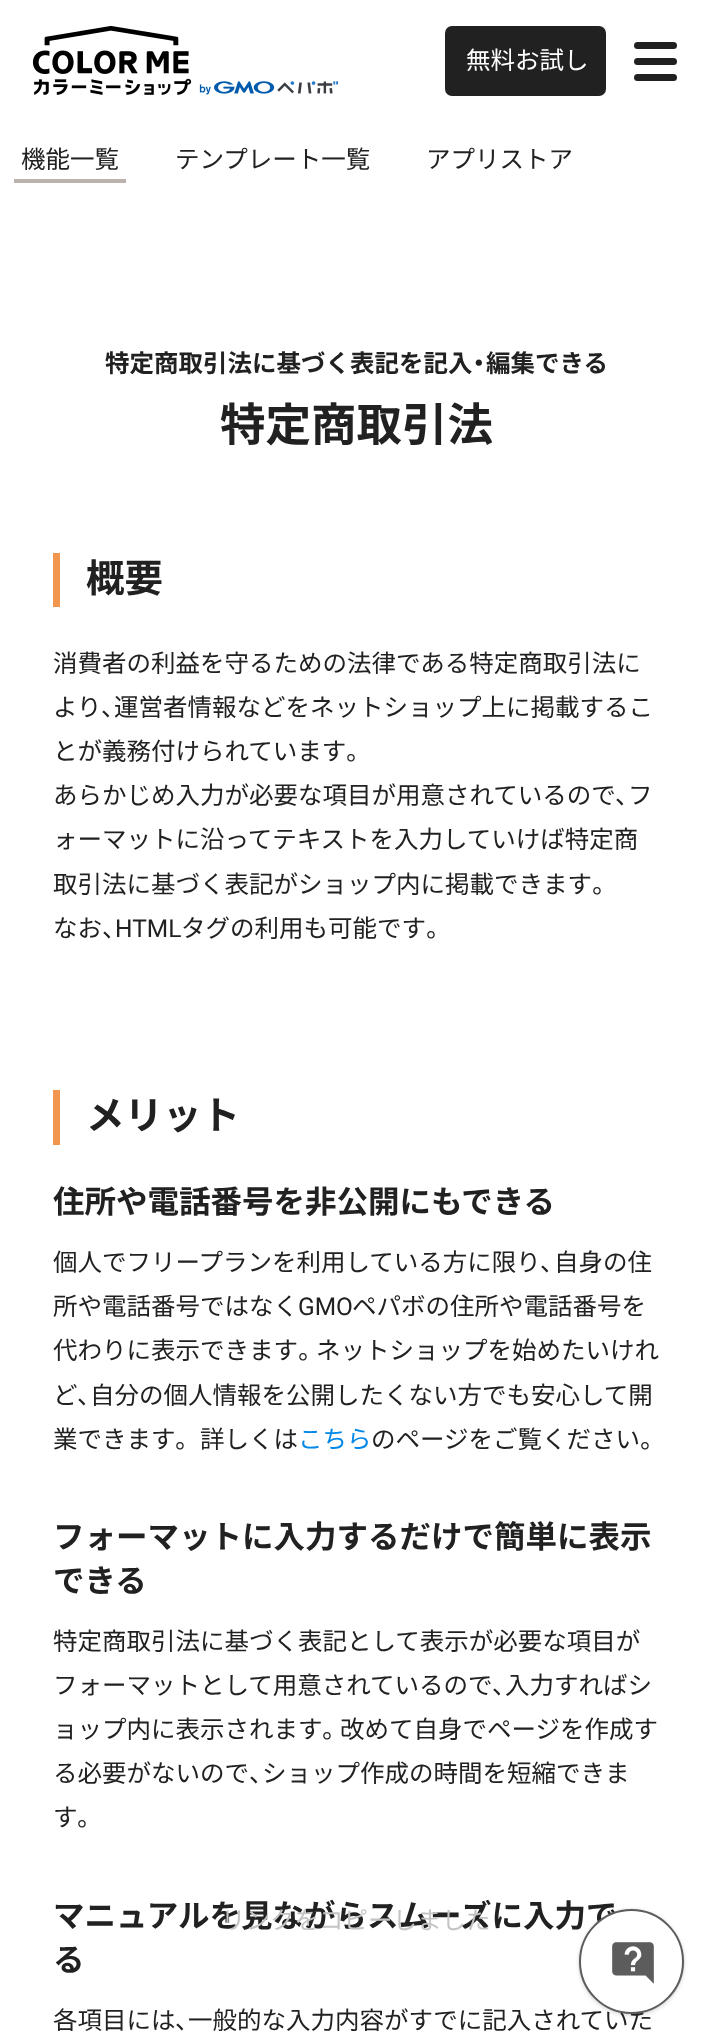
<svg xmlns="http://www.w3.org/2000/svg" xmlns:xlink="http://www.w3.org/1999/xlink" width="712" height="2041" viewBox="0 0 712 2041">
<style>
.cls-1{font:24.5px Noto Sans JP;fill:#ffffff}
.cls-2{font:24.5px Noto Sans JP;fill:#212121}
.cls-3{font:bold 24.5px Noto Sans JP;fill:#212121}
.cls-4{font:bold 24.5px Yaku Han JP;fill:#212121}
.cls-5{font:bold 45.5px Noto Sans JP;fill:#212121}
.cls-6{font:bold 38.5px Noto Sans JP;fill:#212121}
.cls-7{font:24.5px Yaku Han JP;fill:#212121}
.cls-8{font:24.5px Roboto;fill:#212121}
.cls-9{font:bold 31.5px Noto Sans JP;fill:#212121}
.cls-10{font:24.5px Noto Sans JP;fill:#0087e8}
.cls-11{font:24.5px Noto Sans JP;fill:#c4c4c4}
</style>
<rect width="100%" height="100%" fill="#ffffff"/>
<image xlink:href="image0.png" x="32" y="25" width="307" height="70"/>
<rect fill="#212121" x="445" y="26" width="161" height="70" rx="7"/>
<rect fill="#212121" x="634" y="42" width="43" height="7" rx="3.5"/>
<rect fill="#212121" x="634" y="58" width="43" height="7" rx="3.5"/>
<rect fill="#212121" x="634" y="74" width="43" height="7" rx="3.5"/>
<rect fill="#bbb2ae" x="14" y="179" width="112" height="4"/>
<rect fill="#f2954e" x="53" y="553" width="7" height="54"/>
<rect fill="#f2954e" x="53" y="1090" width="7" height="55"/>
<rect fill="#000000" fill-opacity="0.12" filter="blur(2px)" x="579" y="1911" width="105" height="105" rx="52.5"/>
<rect fill="#000000" fill-opacity="0.12" filter="blur(1px)" x="579" y="1909" width="105" height="105" rx="52.5"/>
<text class="cls-1" x="466" y="69">無料お試し</text>
<text class="cls-2" x="21" y="168">機能一覧</text>
<text class="cls-2" x="175" y="168">テンプレート一覧</text>
<text class="cls-2" x="426" y="168">アプリストア</text>
<text class="cls-3" x="105" y="372">特定商取引法に基づく表記を記入</text>
<text class="cls-4" x="472" y="372">・</text>
<text class="cls-3" x="486" y="372">編集できる</text>
<text class="cls-5" x="220" y="441">特定商取引法</text>
<text class="cls-6" x="86" y="592">概要</text>
<text class="cls-2"><tspan x="53" y="672">消費者の利益を守るための法律である特定商取引法に</tspan><tspan x="53" y="716">より</tspan></text>
<text class="cls-7" x="101" y="716">、</text>
<text class="cls-2" x="114" y="716">運営者情報などをネットショップ上に掲載するこ</text>
<text class="cls-2" x="53" y="760">とが義務付けられています</text>
<text class="cls-7" x="346" y="760">。</text>
<text class="cls-2" x="53" y="804">あらかじめ入力が必要な項目が用意されているので</text>
<text class="cls-7" x="615" y="804">、</text>
<text class="cls-2" x="628" y="804">フ</text>
<text class="cls-2"><tspan x="53" y="848">ォーマットに沿ってテキストを入力していけば特定商</tspan><tspan x="53" y="893">取引法に基づく表記がショップ内に掲載できます</tspan></text>
<text class="cls-7" x="592" y="893">。</text>
<text class="cls-2" x="53" y="937">なお</text>
<text class="cls-7" x="102" y="937">、</text>
<text class="cls-8" x="115" y="937">HTML</text>
<text class="cls-2" x="181" y="937">タグの利用も可能です</text>
<text class="cls-7" x="426" y="937">。</text>
<text class="cls-6" x="86" y="1129">メリット</text>
<text class="cls-9" x="53" y="1213">住所や電話番号を非公開にもできる</text>
<text class="cls-2" x="53" y="1271">個人でフリープランを利用している方に限り</text>
<text class="cls-7" x="540" y="1271">、</text>
<text class="cls-2" x="554" y="1271">自身の住</text>
<text class="cls-2" x="53" y="1315">所や電話番号ではなく</text>
<text class="cls-8" x="298" y="1315">GMO</text>
<text class="cls-2" x="352" y="1315">ペパボの住所や電話番号を</text>
<text class="cls-2" x="53" y="1359">代わりに表示できます</text>
<text class="cls-7" x="298" y="1359">。</text>
<text class="cls-2" x="316" y="1359">ネットショップを始めたいけれ</text>
<text class="cls-2" x="53" y="1404">ど</text>
<text class="cls-7" x="77" y="1404">、</text>
<text class="cls-2" x="90" y="1404">自分の個人情報を公開したくない方でも安心して開</text>
<text class="cls-2" x="53" y="1448">業できます</text>
<text class="cls-7" x="175" y="1448">。</text>
<text class="cls-2" x="200" y="1448">詳しくは</text>
<text class="cls-10" x="298" y="1448">こちら</text>
<text class="cls-2" x="371" y="1448">のページをご覧ください</text>
<text class="cls-7" x="640" y="1448">。</text>
<text class="cls-9"><tspan x="53" y="1548">フォーマットに入力するだけで簡単に表示</tspan><tspan x="53" y="1592">できる</tspan></text>
<text class="cls-2"><tspan x="53" y="1650">特定商取引法に基づく表記として表示が必要な項目が</tspan><tspan x="53" y="1694">フォーマットとして用意されているので</tspan></text>
<text class="cls-7" x="492" y="1694">、</text>
<text class="cls-2" x="505" y="1694">入力すればシ</text>
<text class="cls-2" x="53" y="1738">ョップ内に表示されます</text>
<text class="cls-7" x="322" y="1738">。</text>
<text class="cls-2" x="340" y="1738">改めて自身でページを作成す</text>
<text class="cls-2" x="53" y="1782">る必要がないので</text>
<text class="cls-7" x="249" y="1782">、</text>
<text class="cls-2" x="262" y="1782">ショップ作成の時間を短縮できま</text>
<text class="cls-2" x="53" y="1826">す</text>
<text class="cls-7" x="77" y="1826">。</text>
<text class="cls-9"><tspan x="53" y="1927">マニュアルを見ながらスムーズに入力で</tspan><tspan x="53" y="1971">る</tspan></text>
<text class="cls-2" x="53" y="2029">各項目には</text>
<text class="cls-7" x="175" y="2029">、</text>
<text class="cls-2" x="188" y="2029">一般的な入力内容がすでに記入されていた</text>
<text class="cls-11" x="221" y="1929">リンクをコピーしました</text>
<circle fill="#ffffff" stroke="#5c5c5c" stroke-width="2" cx="631.5" cy="1961.5" r="51.5"/>
<image xlink:href="image1.png" x="612" y="1942" width="42" height="42"/>
</svg>
